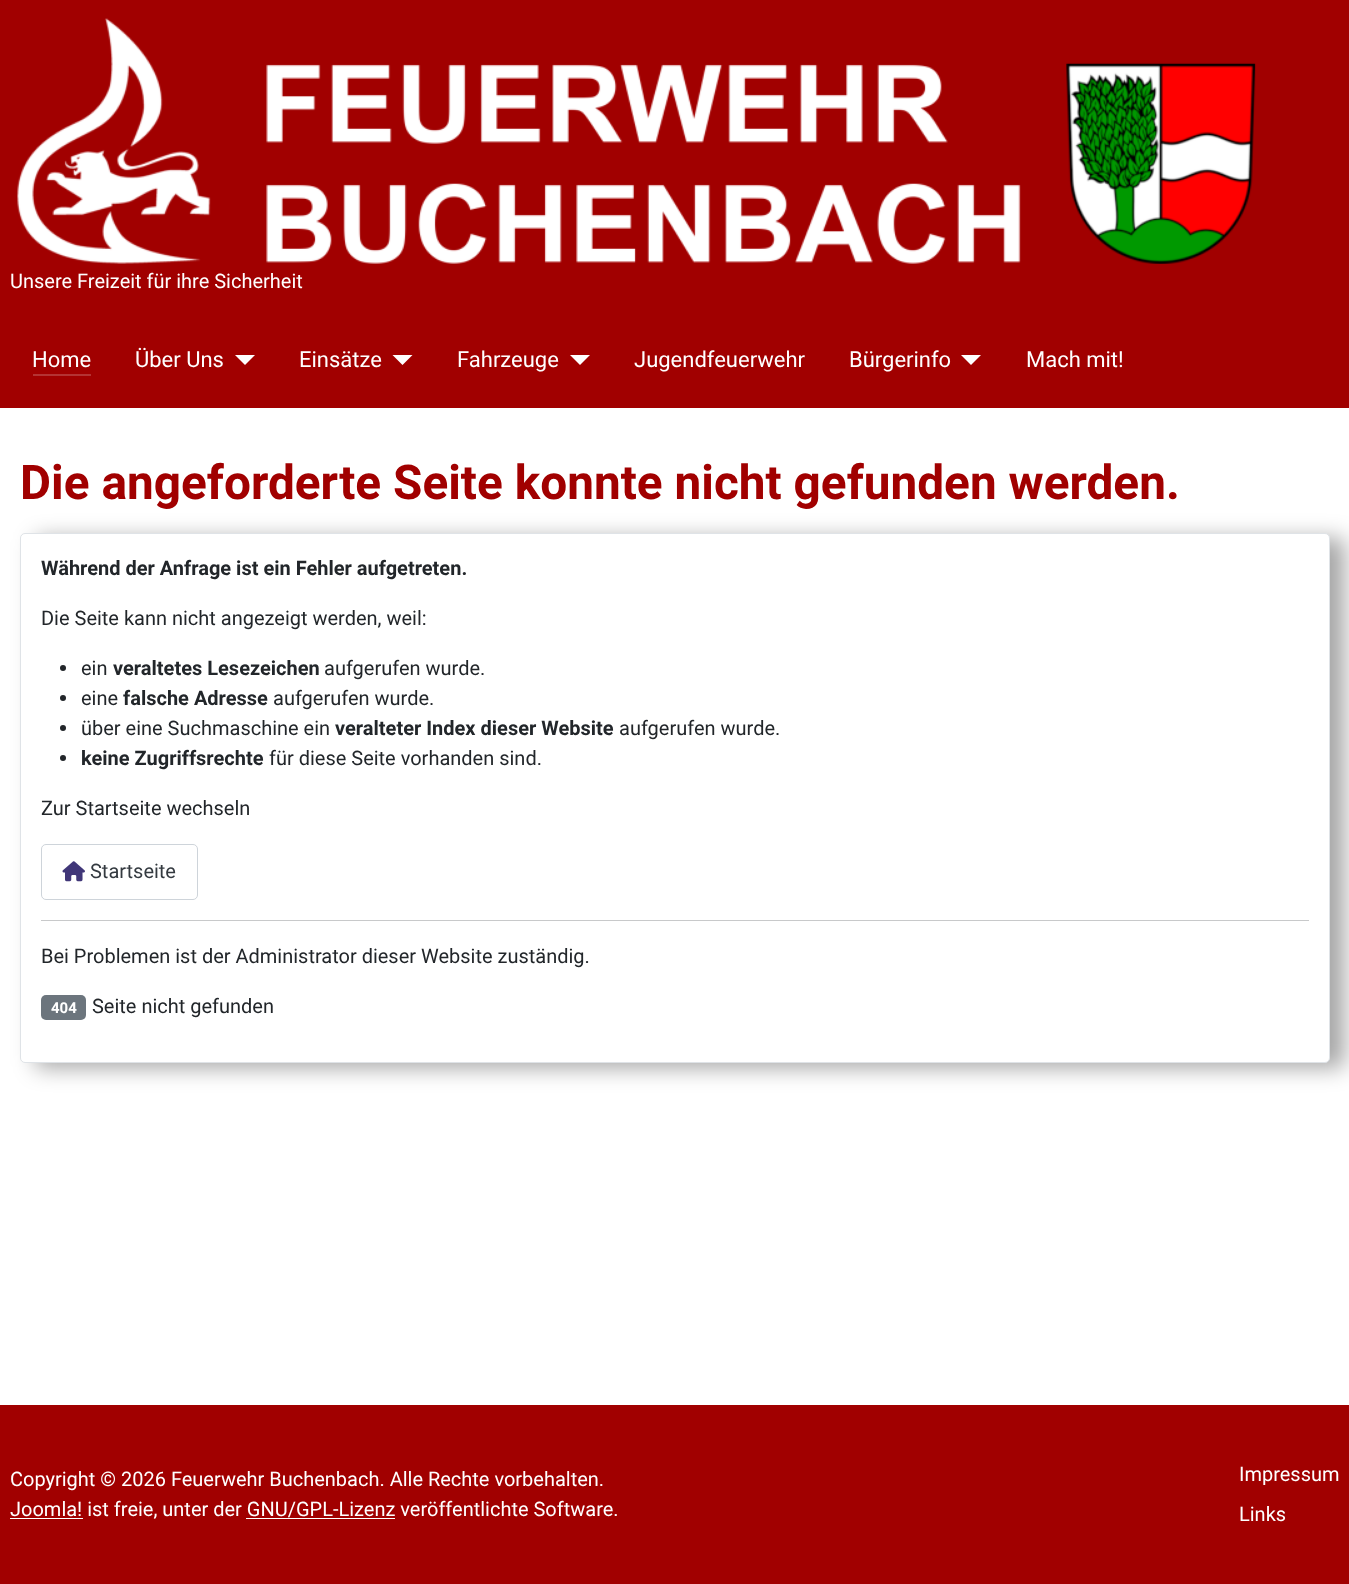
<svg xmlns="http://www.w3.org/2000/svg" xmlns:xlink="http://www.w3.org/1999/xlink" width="1349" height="1584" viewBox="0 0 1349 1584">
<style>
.cls-1{font:20px Roboto;fill:#ffffff}
.cls-2{font:22px Roboto;fill:#ffffff}
.cls-3{font:bold 47.75px Roboto;fill:#a10000}
.cls-4{font:bold 20px Roboto;fill:#22262a}
.cls-5{font:20px Roboto;fill:#22262a}
.cls-6{font:20px Roboto;fill:#343a40}
.cls-7{font:bold 15px Roboto;fill:#ffffff}
</style>
<rect width="100%" height="100%" fill="#ffffff"/>
<rect fill="#a10000" x="0" y="0" width="1349" height="408"/>
<image xlink:href="image0.png" x="17" y="18" width="1239" height="246"/>
<rect fill="#b43333" x="33" y="374" width="58" height="2"/>
<path fill="#ffffff" d="M235 355H255L245 365Z"/>
<path fill="#ffffff" d="M392.5 355H412.5L402.5 365Z"/>
<path fill="#ffffff" d="M570 355H590L580 365Z"/>
<path fill="#ffffff" d="M961 355H981L971 365Z"/>
<rect fill="#000000" fill-opacity="0.35" filter="blur(11px)" x="35" y="538" width="1310" height="530" rx="5"/>
<rect fill="#ffffff" stroke="#dfe3e7" x="20.5" y="533.5" width="1309" height="529" rx="4.5"/>
<circle fill="#22262a" cx="63" cy="668" r="3"/>
<circle fill="#22262a" cx="63" cy="698" r="3"/>
<circle fill="#22262a" cx="63" cy="728" r="3"/>
<circle fill="#22262a" cx="63" cy="758" r="3"/>
<rect fill="none" stroke="#ced4da" x="41.5" y="844.5" width="156" height="55" rx="4.5"/>
<image xlink:href="image1.png" x="62" y="861" width="23" height="21"/>
<rect fill="#c8c9ca" x="41" y="920" width="1268" height="1"/>
<rect fill="#6c757d" x="41" y="995" width="45" height="25" rx="5"/>
<rect fill="#a10000" x="0" y="1405" width="1349" height="179"/>
<rect fill="#ffffff" x="10" y="1518" width="73" height="1"/>
<rect fill="#ffffff" x="246" y="1518" width="149" height="1"/>
<text class="cls-1" x="10" y="288">Unsere Freizeit für ihre Sicherheit</text>
<text class="cls-2" x="32" y="367">Home</text>
<text class="cls-2" x="135" y="367">Über Uns</text>
<text class="cls-2" x="299" y="367">Einsätze</text>
<text class="cls-2" x="457" y="367">Fahrzeuge</text>
<text class="cls-2" x="634" y="367">Jugendfeuerwehr</text>
<text class="cls-2" x="849" y="367">Bürgerinfo</text>
<text class="cls-2" x="1026" y="367">Mach mit!</text>
<text class="cls-3" x="20" y="499">Die angeforderte Seite konnte nicht gefunden werden.</text>
<text class="cls-4" x="41" y="575">Während der Anfrage ist ein Fehler aufgetreten.</text>
<text class="cls-5" x="41" y="625">Die Seite kann nicht angezeigt werden, weil:</text>
<text class="cls-5" x="81" y="675">ein</text>
<text class="cls-4" x="113" y="675">veraltetes Lesezeichen</text>
<text class="cls-5" x="324" y="675">aufgerufen wurde.</text>
<text class="cls-5" x="81" y="705">eine</text>
<text class="cls-4" x="123" y="705">falsche Adresse</text>
<text class="cls-5" x="273" y="705">aufgerufen wurde.</text>
<text class="cls-5" x="81" y="735">über eine Suchmaschine ein</text>
<text class="cls-4" x="335" y="735">veralteter Index dieser Website</text>
<text class="cls-5" x="619" y="735">aufgerufen wurde.</text>
<text class="cls-4" x="81" y="765">keine Zugriffsrechte</text>
<text class="cls-5" x="269" y="765">für diese Seite vorhanden sind.</text>
<text class="cls-5" x="41" y="815">Zur Startseite wechseln</text>
<text class="cls-6" x="90" y="878">Startseite</text>
<text class="cls-5" x="41" y="963">Bei Problemen ist der Administrator dieser Website zuständig.</text>
<text class="cls-7" x="51" y="1013">404</text>
<text class="cls-5" x="92" y="1013">Seite nicht gefunden</text>
<text class="cls-1"><tspan x="10" y="1486">Copyright © 2026 Feuerwehr Buchenbach. Alle Rechte vorbehalten.</tspan><tspan x="10" y="1516">Joomla! ist freie, unter der GNU/GPL-Lizenz veröffentlichte Software.</tspan></text>
<text class="cls-1" x="1239" y="1481">Impressum</text>
<text class="cls-1" x="1239" y="1521">Links</text>
</svg>
